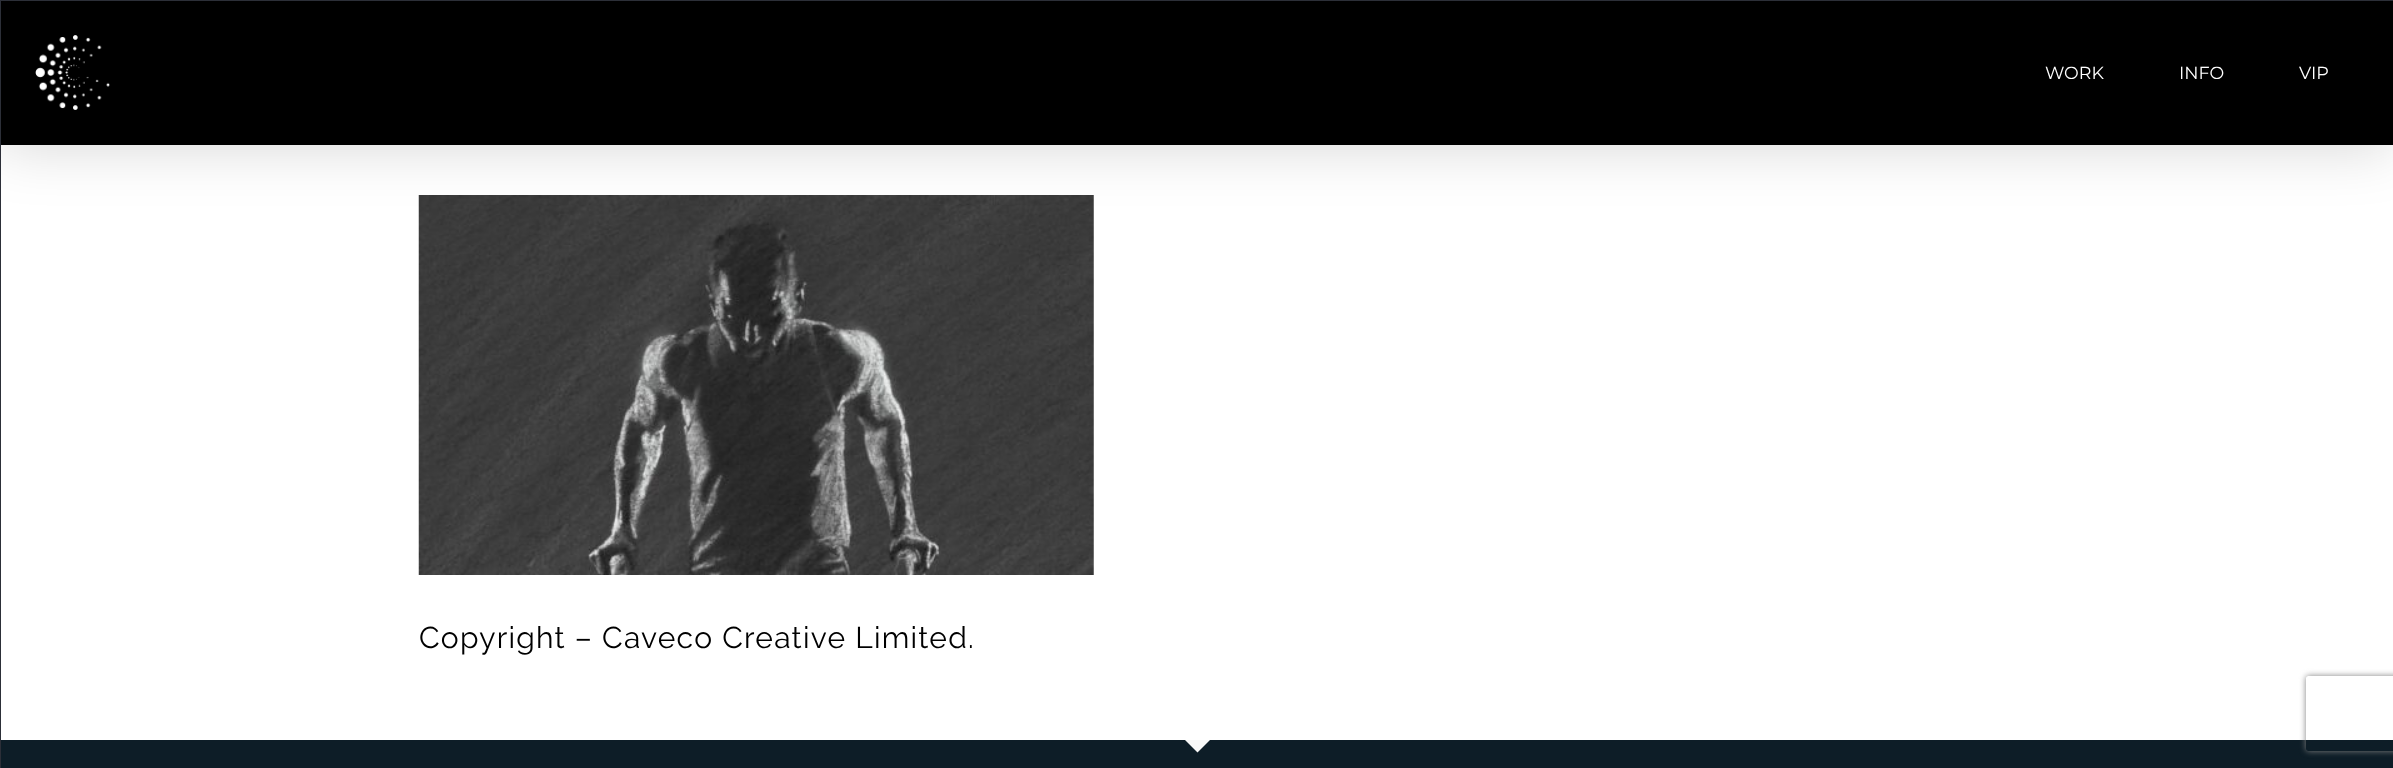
<svg xmlns="http://www.w3.org/2000/svg" xmlns:xlink="http://www.w3.org/1999/xlink" width="2393" height="768" viewBox="0 0 2393 768">
<style>
.cls-1{font:17.5px Montserrat;fill:#ffffff}
.cls-2{font:30px Raleway;letter-spacing:1.25px;fill:#000000}
</style>
<defs>
<clipPath id="clip1"><path d="M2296 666H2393V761H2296ZM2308.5 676H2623.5C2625 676 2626 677 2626 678.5V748.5C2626 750 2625 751 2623.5 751H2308.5C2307 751 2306 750 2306 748.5V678.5C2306 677 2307 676 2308.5 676Z" clip-rule="evenodd"/></clipPath>
</defs>
<rect width="100%" height="100%" fill="#ffffff"/>
<image xlink:href="image1.png" x="418" y="195" width="676" height="380"/>
<rect fill="#000000" fill-opacity="0.15" filter="blur(28px)" x="0" y="4" width="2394" height="145"/>
<rect fill="#2c2f38" x="0" y="0" width="2393" height="1"/>
<rect fill="#2c2f38" x="0" y="0" width="1" height="768"/>
<rect fill="#000000" x="1" y="1" width="2392" height="144"/>
<image xlink:href="image0.png" x="35" y="35" width="75" height="75"/>
<rect fill="#0d1d27" x="1" y="740" width="2392" height="28"/>
<path fill="#f8f8f8" d="M1185 740H1210L1197.5 752.5Z"/>
<g clip-path="url(#clip1)">
<rect fill="#808080" filter="blur(3px)" x="2306" y="676" width="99" height="75" rx="2.5"/>
</g>
<text class="cls-1" x="2045" y="79">WORK</text>
<text class="cls-1" x="2179" y="79">INFO</text>
<text class="cls-1" x="2299" y="79">VIP</text>
<text class="cls-2" x="419" y="648">Copyright – Caveco Creative Limited.</text>
</svg>
